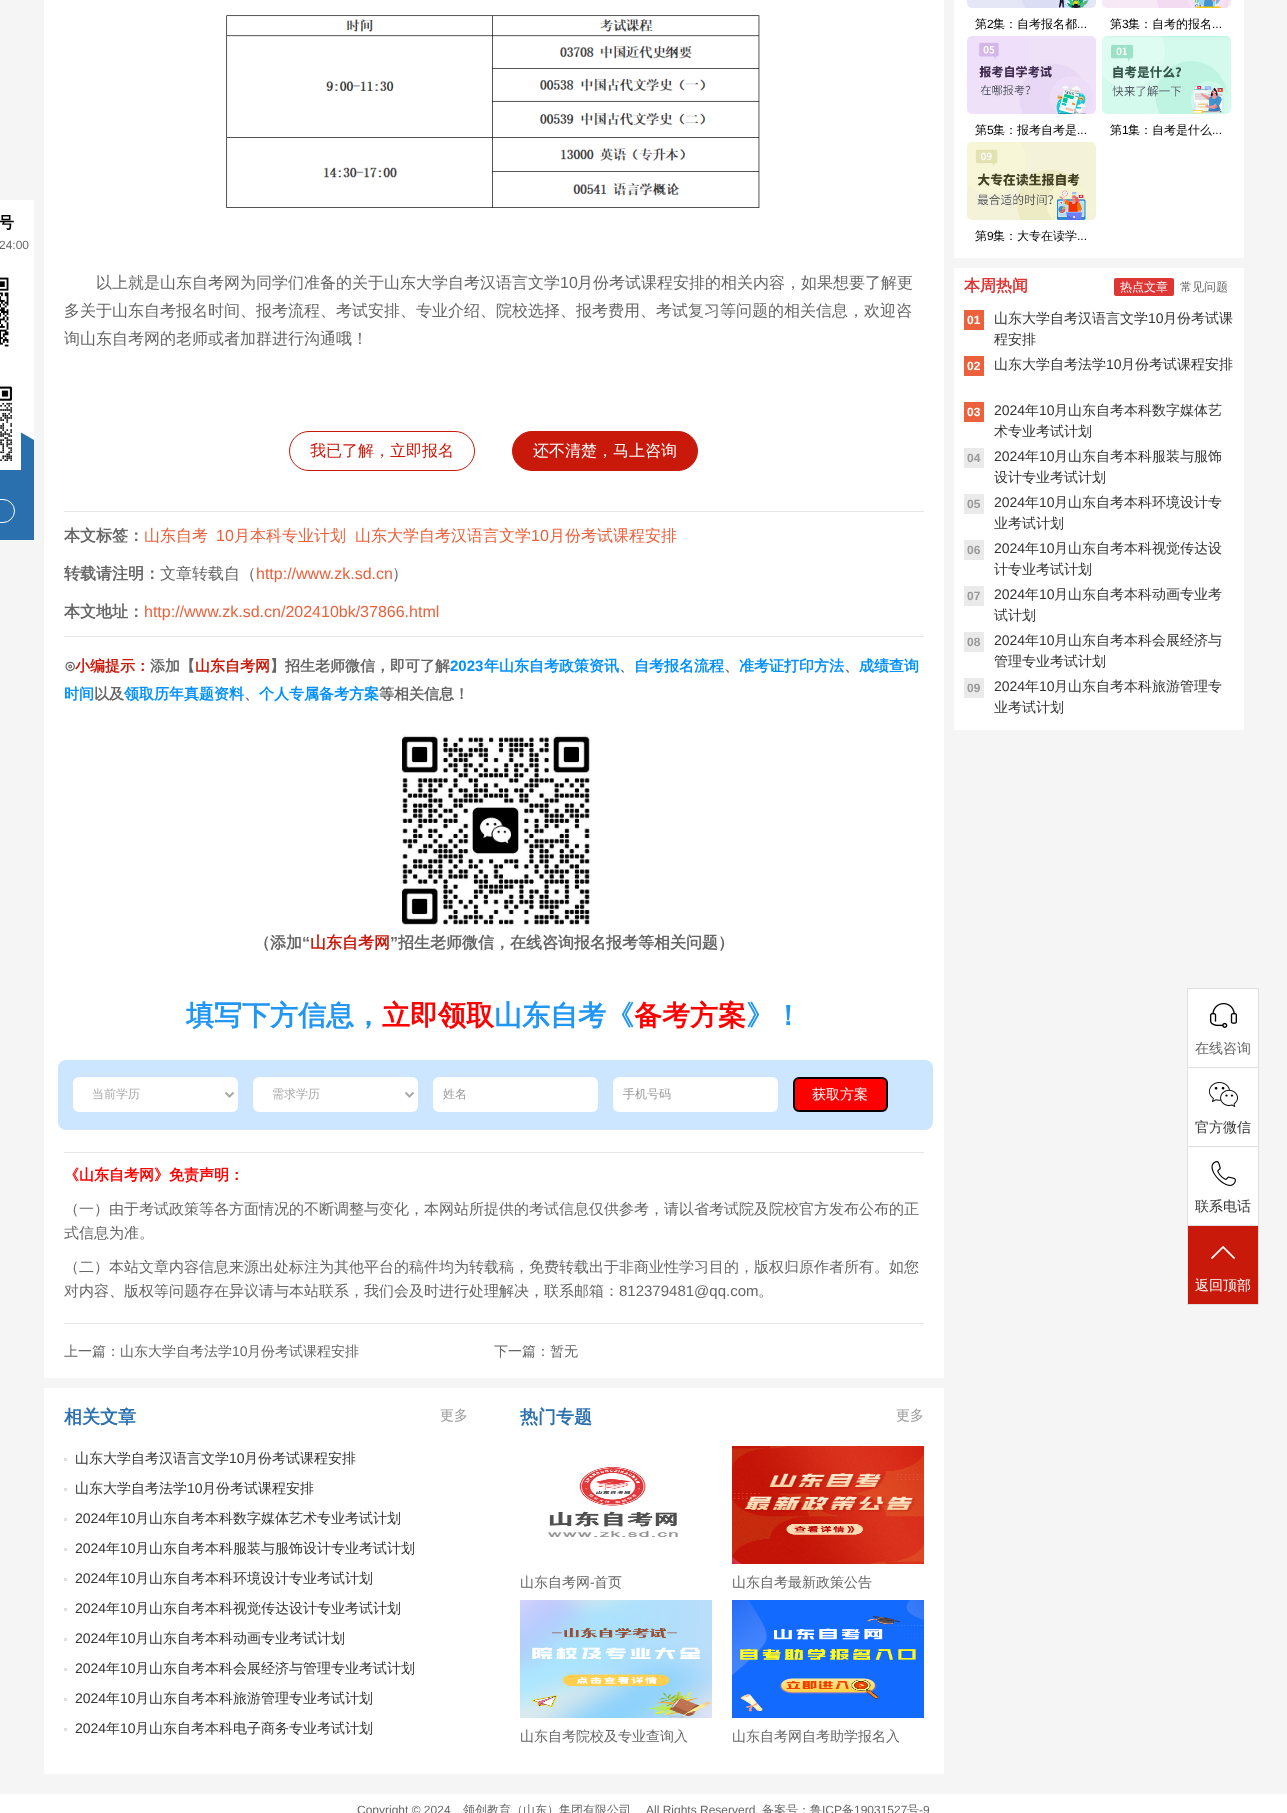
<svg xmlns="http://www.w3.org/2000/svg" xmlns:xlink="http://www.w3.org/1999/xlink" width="1287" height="1813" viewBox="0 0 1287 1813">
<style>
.cls-1{font:bold 16px WenQuanYi Zen Hei;fill:#000000}
.cls-2{font:12px Liberation Sans;fill:#666666}
.cls-3{font:500 16px WenQuanYi Zen Hei;fill:#666666}
.cls-4{font:16px Liberation Sans;fill:#666666}
.cls-5{font:500 16px WenQuanYi Zen Hei;fill:#c8190a}
.cls-6{font:500 16px WenQuanYi Zen Hei;fill:#ffffff}
.cls-7{font:bold 16px WenQuanYi Zen Hei;fill:#666666}
.cls-8{font:500 16px WenQuanYi Zen Hei;fill:#eb613c}
.cls-9{font:16px Liberation Sans;fill:#eb613c}
.cls-10{font:bold 15px WenQuanYi Zen Hei;fill:#666666}
.cls-11{font:bold 15px WenQuanYi Zen Hei;fill:#c8190a}
.cls-12{font:bold 15px Liberation Sans;fill:#0090ff}
.cls-13{font:bold 15px WenQuanYi Zen Hei;fill:#0090ff}
.cls-14{font:bold 16px Liberation Sans;fill:#666666}
.cls-15{font:bold 16px WenQuanYi Zen Hei;fill:#c8190a}
.cls-16{font:bold 28px WenQuanYi Zen Hei;fill:#2196f3}
.cls-17{font:bold 28px WenQuanYi Zen Hei;fill:#ff0000}
.cls-18{font:500 12px WenQuanYi Zen Hei;fill:#a9a9a9}
.cls-19{font:500 12px WenQuanYi Zen Hei;fill:#999999}
.cls-20{font:500 14px WenQuanYi Zen Hei;fill:#ffffff}
.cls-21{font:bold 15px WenQuanYi Zen Hei;fill:#ff0000}
.cls-22{font:500 15px WenQuanYi Zen Hei;fill:#666666}
.cls-23{font:15px Liberation Sans;fill:#666666}
.cls-24{font:500 14px WenQuanYi Zen Hei;fill:#666666}
.cls-25{font:14px Liberation Sans;fill:#666666}
.cls-26{font:bold 18px WenQuanYi Zen Hei;fill:#2b70ae}
.cls-27{font:500 14px WenQuanYi Zen Hei;fill:#999999}
.cls-28{font:500 14px WenQuanYi Zen Hei;fill:#333333}
.cls-29{font:14px Liberation Sans;fill:#333333}
.cls-30{font:500 12px WenQuanYi Zen Hei;fill:#000000}
.cls-31{font:12px Liberation Sans;fill:#000000}
.cls-32{font:bold 16px WenQuanYi Zen Hei;fill:#dd3635}
.cls-33{font:500 12px WenQuanYi Zen Hei;fill:#ffffff}
.cls-34{font:500 12px WenQuanYi Zen Hei;fill:#666666}
.cls-35{font:bold 12px Liberation Sans;fill:#ffffff}
.cls-36{font:bold 12px Liberation Sans;fill:#999999}
</style>
<rect width="100%" height="100%" fill="#f5f5f5"/>
<rect fill="#ffffff" x="0" y="200" width="34" height="240"/>
<image xlink:href="image0.png" x="0" y="277" width="9" height="70"/>
<path fill="#2b70ae" d="M34 440H-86L-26 405Z"/>
<rect fill="#2b70ae" x="0" y="440" width="34" height="100"/>
<rect fill="none" stroke="#ffffff" stroke-width="7" x="-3.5" y="379.5" width="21" height="87"/>
<image xlink:href="image1.png" x="0" y="386" width="14" height="77"/>
<rect fill="none" stroke="#ffffff" x="-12.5" y="499.5" width="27" height="23" rx="11.5"/>
<rect fill="#ffffff" x="44" y="0" width="900" height="1774"/>
<image xlink:href="image2.png" x="226" y="15" width="534" height="193"/>
<rect fill="none" stroke="#c8190a" x="289.5" y="431.5" width="185" height="39" rx="19.5"/>
<rect fill="#c8190a" stroke="#c8190a" x="512.5" y="431.5" width="185" height="39" rx="19.5"/>
<rect fill="#e7e7e7" x="64" y="511" width="860" height="1"/>
<rect fill="#e7e7e7" x="64" y="636" width="860" height="1"/>
<image xlink:href="image3.png" x="400" y="734" width="190" height="191"/>
<rect fill="#cce6ff" x="58" y="1060" width="875" height="70" rx="8"/>
<rect fill="#ffffff" x="73" y="1077" width="165" height="35" rx="6"/>
<path fill="none" stroke="#a9a9a9" stroke-width="2" d="M225.5 1092.5L229.5 1096.5L233.5 1092.5"/>
<rect fill="#ffffff" x="253" y="1077" width="165" height="35" rx="6"/>
<path fill="none" stroke="#a9a9a9" stroke-width="2" d="M405.5 1092.5L409.5 1096.5L413.5 1092.5"/>
<rect fill="#ffffff" x="433" y="1077" width="165" height="35" rx="6"/>
<rect fill="#ffffff" x="613" y="1077" width="165" height="35" rx="6"/>
<rect fill="#ff0000" stroke="#000000" stroke-width="2" x="794" y="1078" width="93" height="33" rx="5"/>
<rect fill="#e7e7e7" x="64" y="1152" width="860" height="1"/>
<rect fill="#e7e7e7" x="64" y="1323" width="860" height="1"/>
<rect fill="#f5f5f5" x="44" y="1378" width="900" height="10"/>
<rect fill="#e0e0e0" x="64" y="1458" width="3" height="3"/>
<rect fill="#e0e0e0" x="64" y="1488" width="3" height="3"/>
<rect fill="#e0e0e0" x="64" y="1518" width="3" height="3"/>
<rect fill="#e0e0e0" x="64" y="1548" width="3" height="3"/>
<rect fill="#e0e0e0" x="64" y="1578" width="3" height="3"/>
<rect fill="#e0e0e0" x="64" y="1608" width="3" height="3"/>
<rect fill="#e0e0e0" x="64" y="1638" width="3" height="3"/>
<rect fill="#e0e0e0" x="64" y="1668" width="3" height="3"/>
<rect fill="#e0e0e0" x="64" y="1698" width="3" height="3"/>
<rect fill="#e0e0e0" x="64" y="1728" width="3" height="3"/>
<image xlink:href="image4.png" x="548" y="1466" width="130" height="71"/>
<image xlink:href="image5.png" x="732" y="1446" width="192" height="118"/>
<image xlink:href="image6.png" x="520" y="1600" width="192" height="118"/>
<image xlink:href="image7.png" x="732" y="1600" width="192" height="118"/>
<rect fill="#ffffff" x="954" y="0" width="290" height="258"/>
<image xlink:href="image8.png" x="967" y="0" width="129" height="8"/>
<image xlink:href="image9.png" x="1102" y="0" width="129" height="8"/>
<image xlink:href="image10.png" x="967" y="36" width="129" height="78"/>
<image xlink:href="image11.png" x="1102" y="36" width="129" height="78"/>
<image xlink:href="image12.png" x="967" y="142" width="129" height="78"/>
<rect fill="#ffffff" x="954" y="268" width="290" height="462"/>
<rect fill="#dd3635" x="1114" y="278" width="60" height="18" rx="2"/>
<rect fill="#eb613c" x="964" y="310" width="20" height="20"/>
<rect fill="#eb613c" x="964" y="356" width="20" height="20"/>
<rect fill="#eb613c" x="964" y="402" width="20" height="20"/>
<rect fill="#eaeaea" x="964" y="448" width="20" height="20"/>
<rect fill="#eaeaea" x="964" y="494" width="20" height="20"/>
<rect fill="#eaeaea" x="964" y="540" width="20" height="20"/>
<rect fill="#eaeaea" x="964" y="586" width="20" height="20"/>
<rect fill="#eaeaea" x="964" y="632" width="20" height="20"/>
<rect fill="#eaeaea" x="964" y="678" width="20" height="20"/>
<rect fill="#ffffff" x="1188" y="989" width="70" height="236"/>
<rect fill="#e0e0e0" x="1187" y="988" width="72" height="1"/>
<rect fill="#e0e0e0" x="1258" y="988" width="1" height="317"/>
<rect fill="#e0e0e0" x="1187" y="988" width="1" height="317"/>
<rect fill="#e0e0e0" x="1188" y="1067" width="70" height="1"/>
<image xlink:href="image13.png" x="1210" y="1003" width="27" height="25"/>
<rect fill="#e0e0e0" x="1188" y="1146" width="70" height="1"/>
<image xlink:href="image14.png" x="1209" y="1082" width="29" height="25"/>
<rect fill="#e0e0e0" x="1188" y="1225" width="70" height="1"/>
<image xlink:href="image15.png" x="1211" y="1161" width="25" height="25"/>
<rect fill="#c8190a" x="1188" y="1226" width="70" height="78"/>
<rect fill="#e0e0e0" x="1188" y="1304" width="70" height="1"/>
<image xlink:href="image16.png" x="1211" y="1246" width="24" height="13"/>
<rect fill="#ffffff" x="0" y="1794" width="1287" height="19"/>
<text class="cls-1" x="-2" y="228">号</text>
<text class="cls-2" x="-1" y="249">24:00</text>
<text class="cls-3" x="96" y="288">以上就是山东自考网为同学们准备的关于山东大学自考汉语言文学</text>
<text class="cls-4" x="560" y="288">10</text>
<text class="cls-3" x="577" y="288">月份考试课程安排的相关内容，如果想要了解更</text>
<text class="cls-3"><tspan x="64" y="316">多关于山东自考报名时间、报考流程、考试安排、专业介绍、院校选择、报考费用、考试复习等问题的相关信息，欢迎咨</tspan><tspan x="64" y="344">询山东自考网的老师或者加群进行沟通哦！</tspan></text>
<text class="cls-5" x="310" y="456">我已了解，立即报名</text>
<text class="cls-6" x="533" y="456">还不清楚，马上咨询</text>
<text class="cls-7" x="64" y="541">本文标签：</text>
<text class="cls-8" x="144" y="541">山东自考</text>
<text class="cls-9" x="216" y="541">10</text>
<text class="cls-8" x="234" y="541">月本科专业计划</text>
<text class="cls-8" x="355" y="541">山东大学自考汉语言文学</text>
<text class="cls-9" x="531" y="541">10</text>
<text class="cls-8" x="549" y="541">月份考试课程安排</text>
<text class="cls-7" x="64" y="579">转载请注明：</text>
<text class="cls-3" x="160" y="579">文章转载自（</text>
<text class="cls-9" x="256" y="579">http://www.zk.sd.cn</text>
<text class="cls-3" x="392" y="579">）</text>
<text class="cls-7" x="64" y="617">本文地址：</text>
<text class="cls-9" x="144" y="617">http://www.zk.sd.cn/202410bk/37866.html</text>
<text class="cls-10" x="64" y="671">⊙</text>
<text class="cls-11" x="75" y="671">小编提示：</text>
<text class="cls-10" x="150" y="671">添加【</text>
<text class="cls-11" x="195" y="671">山东自考网</text>
<text class="cls-10" x="270" y="671">】招生老师微信，即可了解</text>
<text class="cls-12" x="450" y="671">2023</text>
<text class="cls-13" x="484" y="671">年山东自考政策资讯</text>
<text class="cls-10" x="619" y="671">、</text>
<text class="cls-13" x="634" y="671">自考报名流程</text>
<text class="cls-10" x="724" y="671">、</text>
<text class="cls-13" x="739" y="671">准考证打印方法</text>
<text class="cls-10" x="844" y="671">、</text>
<text class="cls-13" x="859" y="671">成绩查询</text>
<text class="cls-13" x="64" y="699">时间</text>
<text class="cls-10" x="94" y="699">以及</text>
<text class="cls-13" x="124" y="699">领取历年真题资料</text>
<text class="cls-10" x="244" y="699">、</text>
<text class="cls-13" x="259" y="699">个人专属备考方案</text>
<text class="cls-10" x="379" y="699">等相关信息！</text>
<text class="cls-7" x="254" y="948">（添加</text>
<text class="cls-14" x="302" y="948">“</text>
<text class="cls-15" x="310" y="948">山东自考网</text>
<text class="cls-14" x="390" y="948">”</text>
<text class="cls-7" x="398" y="948">招生老师微信，在线咨询报名报考等相关问题）</text>
<text class="cls-16" x="186" y="1025">填写下方信息，</text>
<text class="cls-17" x="382" y="1025">立即领取</text>
<text class="cls-16" x="494" y="1025">山东自考《</text>
<text class="cls-17" x="634" y="1025">备考方案</text>
<text class="cls-16" x="746" y="1025">》！</text>
<text class="cls-18" x="92" y="1098">当前学历</text>
<text class="cls-18" x="272" y="1098">需求学历</text>
<text class="cls-19" x="443" y="1098">姓名</text>
<text class="cls-19" x="623" y="1098">手机号码</text>
<text class="cls-20" x="812" y="1099">获取方案</text>
<text class="cls-21" x="64" y="1180">《山东自考网》免责声明：</text>
<text class="cls-22"><tspan x="64" y="1214">（一）由于考试政策等各方面情况的不断调整与变化，本网站所提供的考试信息仅供参考，请以省考试院及院校官方发布公布的正</tspan><tspan x="64" y="1238">式信息为准。</tspan></text>
<text class="cls-22"><tspan x="64" y="1272">（二）本站文章内容信息来源出处标注为其他平台的稿件均为转载稿，免费转载出于非商业性学习目的，版权归原作者所有。如您</tspan><tspan x="64" y="1296">对内容、版权等问题存在异议请与本站联系，我们会及时进行处理解决，联系邮箱：</tspan></text>
<text class="cls-23" x="619" y="1296">812379481@qq.com</text>
<text class="cls-22" x="758" y="1296">。</text>
<text class="cls-24" x="64" y="1356">上一篇：山东大学自考法学</text>
<text class="cls-25" x="232" y="1356">10</text>
<text class="cls-24" x="247" y="1356">月份考试课程安排</text>
<text class="cls-24" x="494" y="1356">下一篇：暂无</text>
<text class="cls-26" x="64" y="1423">相关文章</text>
<text class="cls-27" x="440" y="1420">更多</text>
<text class="cls-28" x="75" y="1463">山东大学自考汉语言文学</text>
<text class="cls-29" x="229" y="1463">10</text>
<text class="cls-28" x="244" y="1463">月份考试课程安排</text>
<text class="cls-28" x="75" y="1493">山东大学自考法学</text>
<text class="cls-29" x="187" y="1493">10</text>
<text class="cls-28" x="202" y="1493">月份考试课程安排</text>
<text class="cls-29" x="75" y="1523">2024</text>
<text class="cls-28" x="106" y="1523">年</text>
<text class="cls-29" x="120" y="1523">10</text>
<text class="cls-28" x="135" y="1523">月山东自考本科数字媒体艺术专业考试计划</text>
<text class="cls-29" x="75" y="1553">2024</text>
<text class="cls-28" x="106" y="1553">年</text>
<text class="cls-29" x="120" y="1553">10</text>
<text class="cls-28" x="135" y="1553">月山东自考本科服装与服饰设计专业考试计划</text>
<text class="cls-29" x="75" y="1583">2024</text>
<text class="cls-28" x="106" y="1583">年</text>
<text class="cls-29" x="120" y="1583">10</text>
<text class="cls-28" x="135" y="1583">月山东自考本科环境设计专业考试计划</text>
<text class="cls-29" x="75" y="1613">2024</text>
<text class="cls-28" x="106" y="1613">年</text>
<text class="cls-29" x="120" y="1613">10</text>
<text class="cls-28" x="135" y="1613">月山东自考本科视觉传达设计专业考试计划</text>
<text class="cls-29" x="75" y="1643">2024</text>
<text class="cls-28" x="106" y="1643">年</text>
<text class="cls-29" x="120" y="1643">10</text>
<text class="cls-28" x="135" y="1643">月山东自考本科动画专业考试计划</text>
<text class="cls-29" x="75" y="1673">2024</text>
<text class="cls-28" x="106" y="1673">年</text>
<text class="cls-29" x="120" y="1673">10</text>
<text class="cls-28" x="135" y="1673">月山东自考本科会展经济与管理专业考试计划</text>
<text class="cls-29" x="75" y="1703">2024</text>
<text class="cls-28" x="106" y="1703">年</text>
<text class="cls-29" x="120" y="1703">10</text>
<text class="cls-28" x="135" y="1703">月山东自考本科旅游管理专业考试计划</text>
<text class="cls-29" x="75" y="1733">2024</text>
<text class="cls-28" x="106" y="1733">年</text>
<text class="cls-29" x="120" y="1733">10</text>
<text class="cls-28" x="135" y="1733">月山东自考本科电子商务专业考试计划</text>
<text class="cls-26" x="520" y="1423">热门专题</text>
<text class="cls-27" x="896" y="1420">更多</text>
<text class="cls-24" x="520" y="1587">山东自考网</text>
<text class="cls-25" x="590" y="1587">-</text>
<text class="cls-24" x="594" y="1587">首页</text>
<text class="cls-24" x="732" y="1587">山东自考最新政策公告</text>
<text class="cls-24" x="520" y="1741">山东自考院校及专业查询入</text>
<text class="cls-24" x="732" y="1741">山东自考网自考助学报名入</text>
<text class="cls-30" x="975" y="28">第</text>
<text class="cls-31" x="987" y="28">2</text>
<text class="cls-30" x="993" y="28">集：自考报名都</text>
<text class="cls-31" x="1077" y="28">...</text>
<text class="cls-30" x="1110" y="28">第</text>
<text class="cls-31" x="1122" y="28">3</text>
<text class="cls-30" x="1128" y="28">集：自考的报名</text>
<text class="cls-31" x="1212" y="28">...</text>
<text class="cls-30" x="975" y="134">第</text>
<text class="cls-31" x="987" y="134">5</text>
<text class="cls-30" x="993" y="134">集：报考自考是</text>
<text class="cls-31" x="1077" y="134">...</text>
<text class="cls-30" x="1110" y="134">第</text>
<text class="cls-31" x="1122" y="134">1</text>
<text class="cls-30" x="1128" y="134">集：自考是什么</text>
<text class="cls-31" x="1212" y="134">...</text>
<text class="cls-30" x="975" y="240">第</text>
<text class="cls-31" x="987" y="240">9</text>
<text class="cls-30" x="993" y="240">集：大专在读学</text>
<text class="cls-31" x="1077" y="240">...</text>
<text class="cls-32" x="964" y="291">本周热闻</text>
<text class="cls-33" x="1120" y="291">热点文章</text>
<text class="cls-34" x="1180" y="291">常见问题</text>
<text class="cls-35" x="967" y="324">01</text>
<text class="cls-28" x="994" y="323">山东大学自考汉语言文学</text>
<text class="cls-29" x="1148" y="323">10</text>
<text class="cls-28" x="1163" y="323">月份考试课</text>
<text class="cls-28" x="994" y="344">程安排</text>
<text class="cls-35" x="967" y="370">02</text>
<text class="cls-28" x="994" y="369">山东大学自考法学</text>
<text class="cls-29" x="1106" y="369">10</text>
<text class="cls-28" x="1121" y="369">月份考试课程安排</text>
<text class="cls-35" x="967" y="416">03</text>
<text class="cls-29" x="994" y="415">2024</text>
<text class="cls-28" x="1025" y="415">年</text>
<text class="cls-29" x="1039" y="415">10</text>
<text class="cls-28" x="1054" y="415">月山东自考本科数字媒体艺</text>
<text class="cls-28" x="994" y="436">术专业考试计划</text>
<text class="cls-36" x="967" y="462">04</text>
<text class="cls-29" x="994" y="461">2024</text>
<text class="cls-28" x="1025" y="461">年</text>
<text class="cls-29" x="1039" y="461">10</text>
<text class="cls-28" x="1054" y="461">月山东自考本科服装与服饰</text>
<text class="cls-28" x="994" y="482">设计专业考试计划</text>
<text class="cls-36" x="967" y="508">05</text>
<text class="cls-29" x="994" y="507">2024</text>
<text class="cls-28" x="1025" y="507">年</text>
<text class="cls-29" x="1039" y="507">10</text>
<text class="cls-28" x="1054" y="507">月山东自考本科环境设计专</text>
<text class="cls-28" x="994" y="528">业考试计划</text>
<text class="cls-36" x="967" y="554">06</text>
<text class="cls-29" x="994" y="553">2024</text>
<text class="cls-28" x="1025" y="553">年</text>
<text class="cls-29" x="1039" y="553">10</text>
<text class="cls-28" x="1054" y="553">月山东自考本科视觉传达设</text>
<text class="cls-28" x="994" y="574">计专业考试计划</text>
<text class="cls-36" x="967" y="600">07</text>
<text class="cls-29" x="994" y="599">2024</text>
<text class="cls-28" x="1025" y="599">年</text>
<text class="cls-29" x="1039" y="599">10</text>
<text class="cls-28" x="1054" y="599">月山东自考本科动画专业考</text>
<text class="cls-28" x="994" y="620">试计划</text>
<text class="cls-36" x="967" y="646">08</text>
<text class="cls-29" x="994" y="645">2024</text>
<text class="cls-28" x="1025" y="645">年</text>
<text class="cls-29" x="1039" y="645">10</text>
<text class="cls-28" x="1054" y="645">月山东自考本科会展经济与</text>
<text class="cls-28" x="994" y="666">管理专业考试计划</text>
<text class="cls-36" x="967" y="692">09</text>
<text class="cls-29" x="994" y="691">2024</text>
<text class="cls-28" x="1025" y="691">年</text>
<text class="cls-29" x="1039" y="691">10</text>
<text class="cls-28" x="1054" y="691">月山东自考本科旅游管理专</text>
<text class="cls-28" x="994" y="712">业考试计划</text>
<text class="cls-24" x="1195" y="1053">在线咨询</text>
<text class="cls-28" x="1195" y="1132">官方微信</text>
<text class="cls-28" x="1195" y="1211">联系电话</text>
<text class="cls-20" x="1195" y="1290">返回顶部</text>
<text class="cls-2" x="357" y="1814">Copyright © 2024</text>
<text class="cls-34" x="463" y="1814">领创教育（山东）集团有限公司</text>
<text class="cls-2" x="646" y="1814">All Rights Reserverd.</text>
<text class="cls-34" x="762" y="1814">备案号：鲁</text>
<text class="cls-2" x="822" y="1814">ICP</text>
<text class="cls-34" x="842" y="1814">备</text>
<text class="cls-2" x="854" y="1814">19031527</text>
<text class="cls-34" x="907" y="1814">号</text>
<text class="cls-2" x="919" y="1814">-9</text>
</svg>
